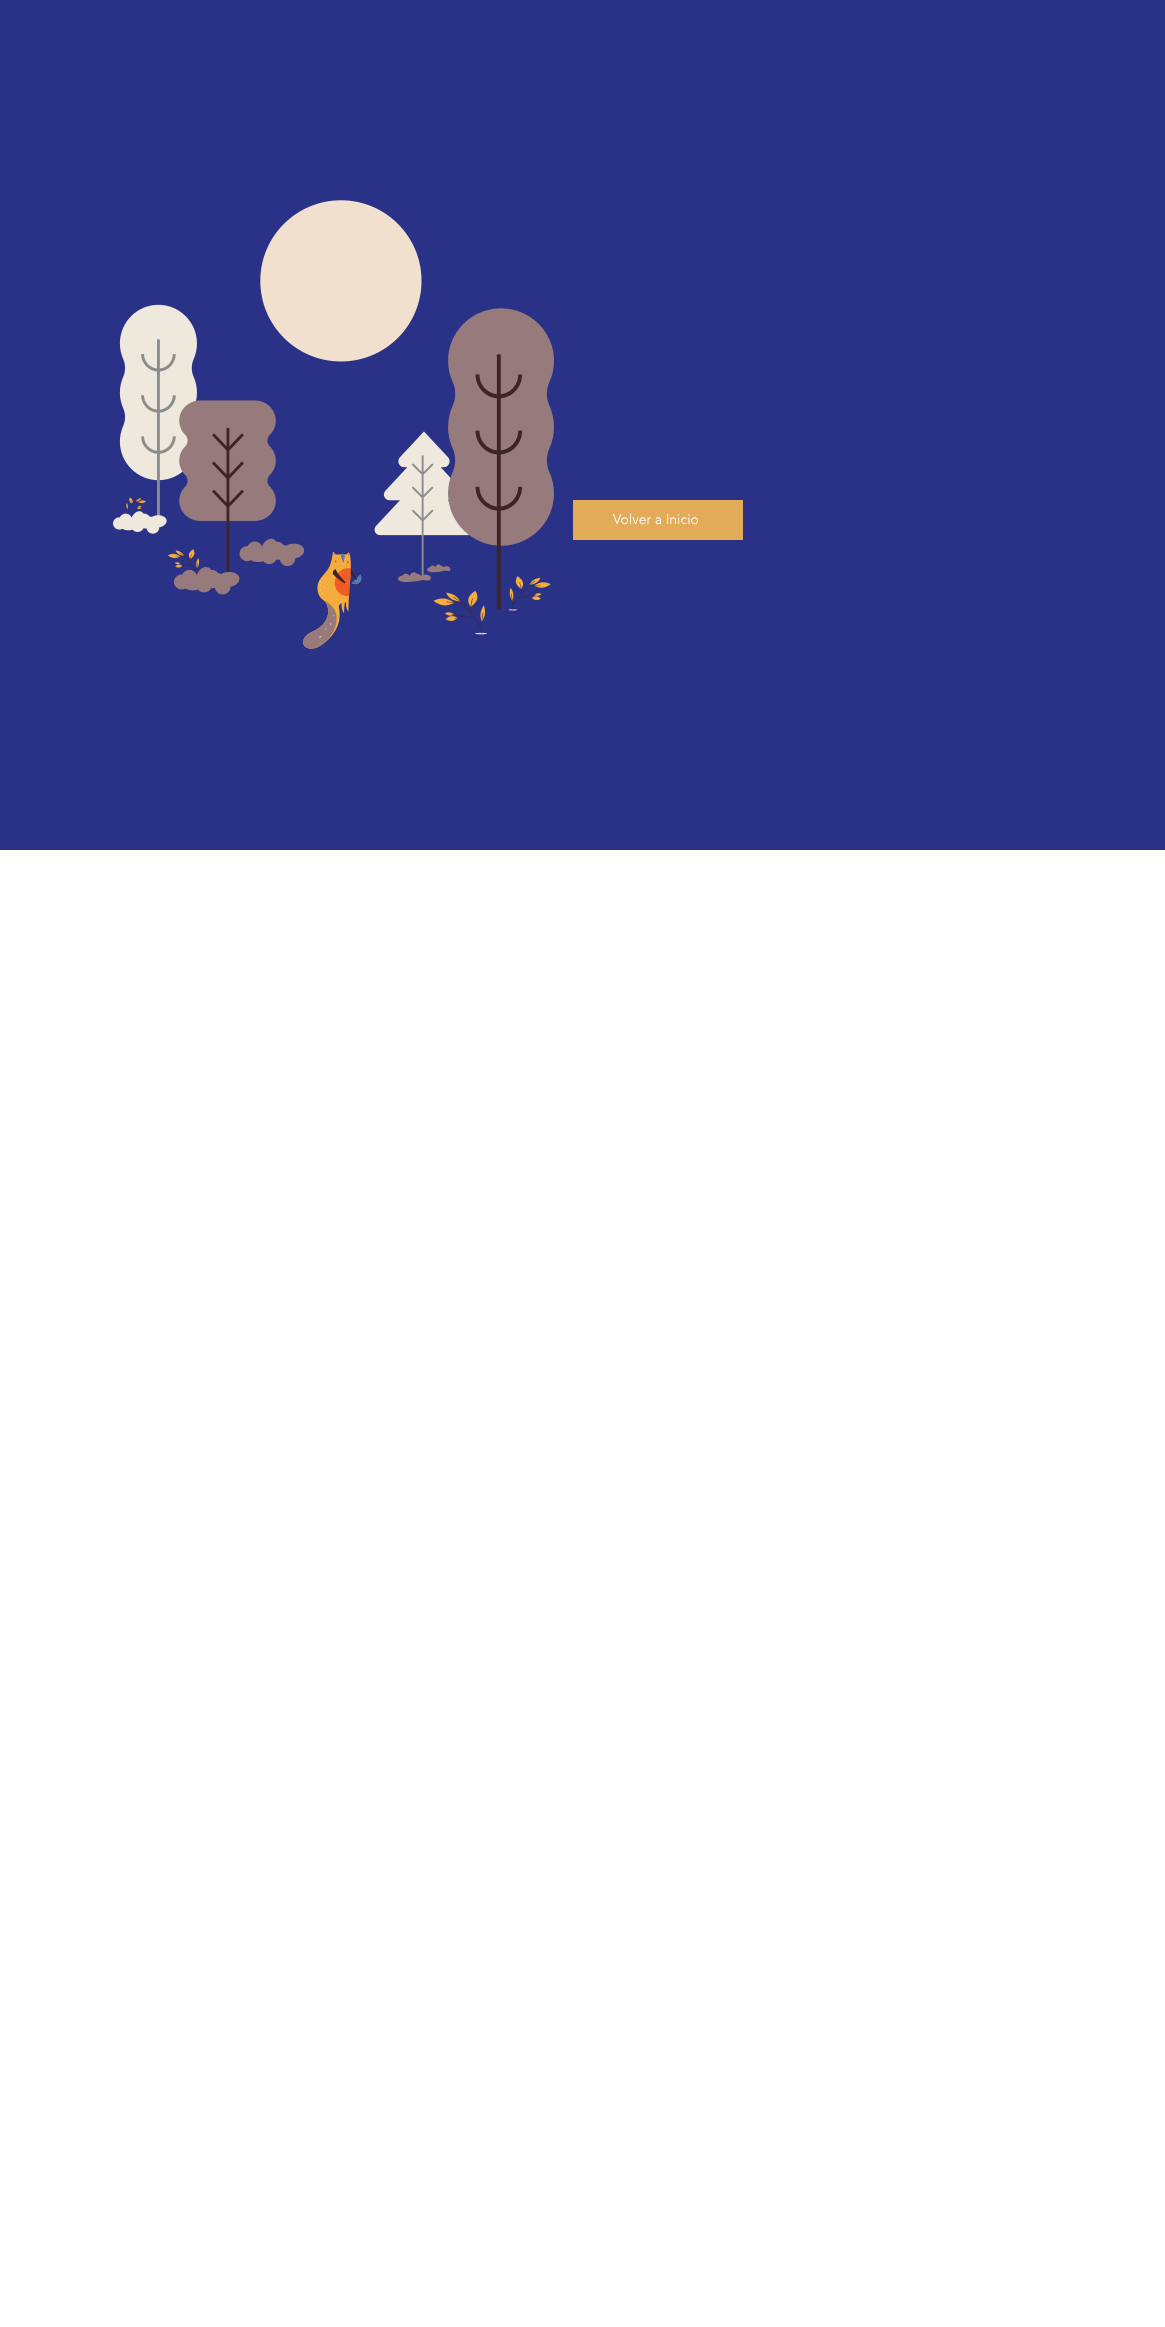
<svg xmlns="http://www.w3.org/2000/svg" xmlns:xlink="http://www.w3.org/1999/xlink" width="1165" height="2327" viewBox="0 0 1165 2327">
<style>
.cls-1{font:300 14px 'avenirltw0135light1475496';fill:#ffffff}
</style>
<rect width="100%" height="100%" fill="#ffffff"/>
<rect fill="#2a3288" x="0" y="0" width="1165" height="850"/>
<image xlink:href="image0.png" x="113" y="200" width="441" height="449"/>
<rect fill="#e1ab57" x="573" y="500" width="170" height="40"/>
<text class="cls-1" x="613" y="524">Volver a Inicio</text>
</svg>
